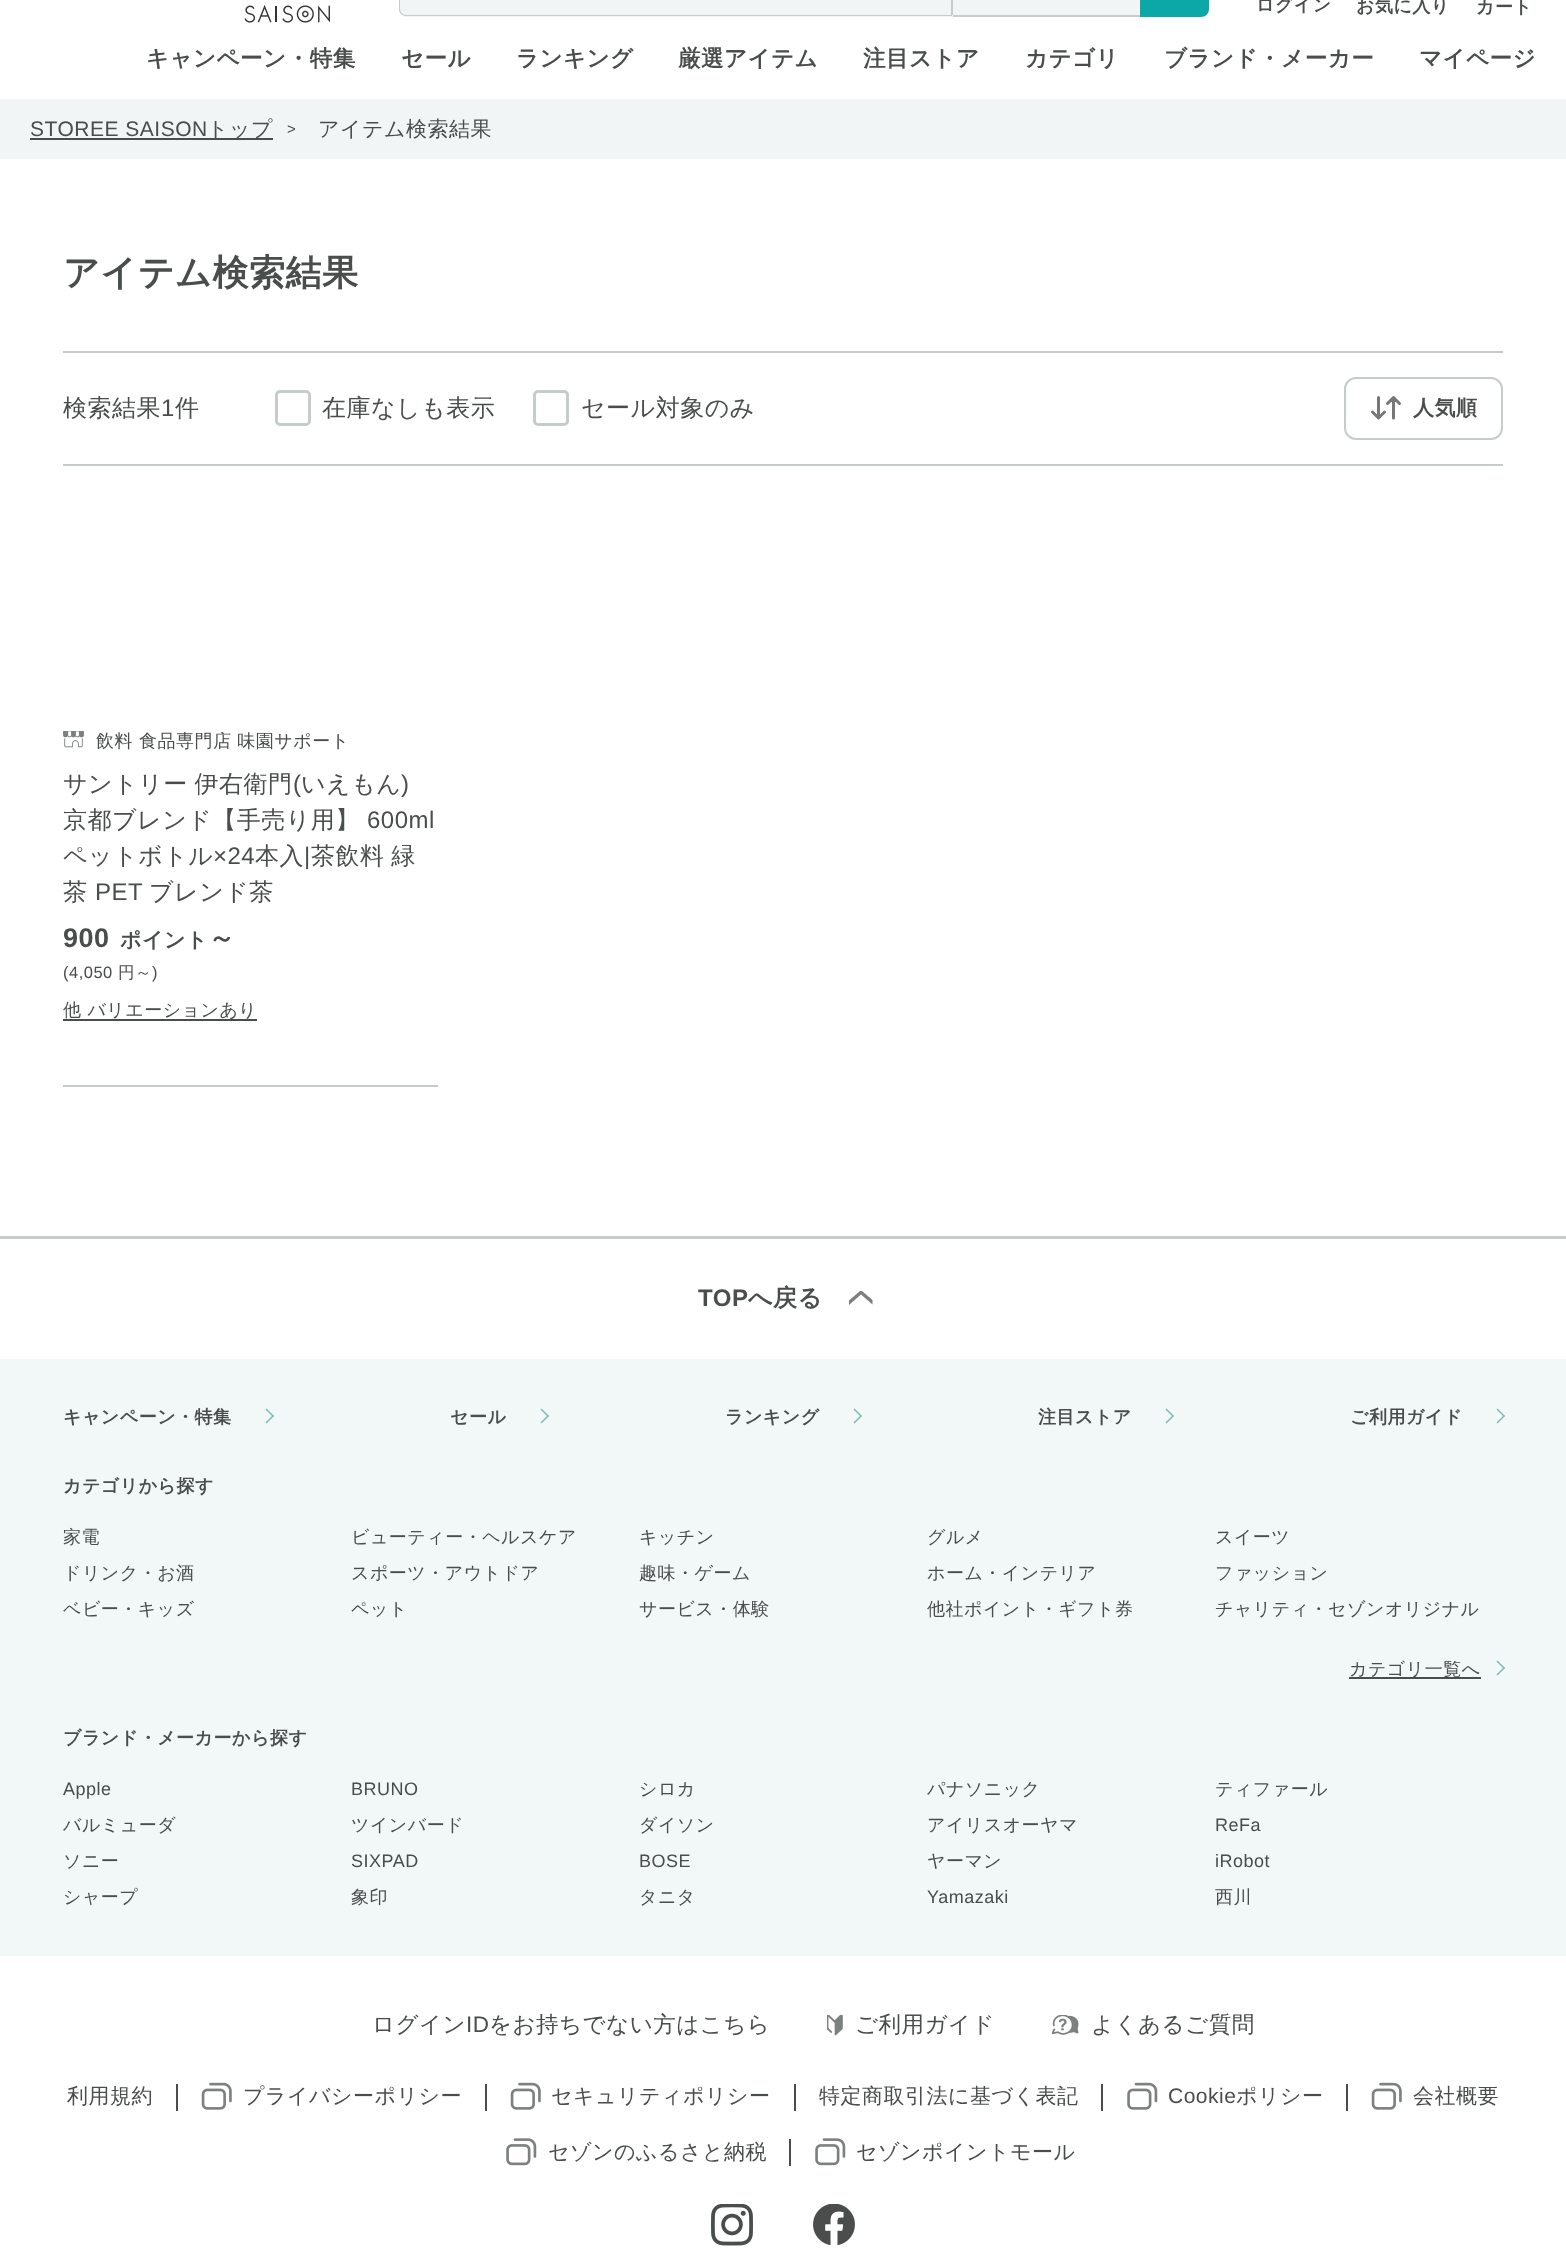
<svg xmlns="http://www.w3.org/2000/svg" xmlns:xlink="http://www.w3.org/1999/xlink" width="1566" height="2267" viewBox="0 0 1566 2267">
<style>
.cls-1{font:bold 18px WenQuanYi Zen Hei;letter-spacing:0.5px;fill:#494d4c}
.cls-2{font:bold 22.5px WenQuanYi Zen Hei;letter-spacing:0.5px;fill:#494d4c}
.cls-3{font:21px Liberation Sans;letter-spacing:0.5px;fill:#494d4c}
.cls-4{font:500 21px WenQuanYi Zen Hei;letter-spacing:0.5px;fill:#494d4c}
.cls-5{font:15px Liberation Sans;letter-spacing:0.5px;fill:#494d4c}
.cls-6{font:bold 36px WenQuanYi Zen Hei;letter-spacing:0.5px;fill:#494d4c}
.cls-7{font:500 24px WenQuanYi Zen Hei;letter-spacing:0.5px;fill:#494d4c}
.cls-8{font:24px Liberation Sans;letter-spacing:0.5px;fill:#494d4c}
.cls-9{font:bold 21px WenQuanYi Zen Hei;letter-spacing:0.5px;fill:#494d4c}
.cls-10{font:500 18px WenQuanYi Zen Hei;letter-spacing:0.5px;fill:#494d4c}
.cls-11{font:bold 27px Liberation Sans;letter-spacing:0.5px;fill:#494d4c}
.cls-12{font:bold 27px WenQuanYi Zen Hei;letter-spacing:0.5px;fill:#494d4c}
.cls-13{font:16.5px Liberation Sans;letter-spacing:0.5px;fill:#494d4c}
.cls-14{font:500 16.5px WenQuanYi Zen Hei;letter-spacing:0.5px;fill:#494d4c}
.cls-15{font:bold 24px Liberation Sans;letter-spacing:0.5px;fill:#494d4c}
.cls-16{font:bold 24px WenQuanYi Zen Hei;letter-spacing:0.5px;fill:#494d4c}
.cls-17{font:18px Liberation Sans;letter-spacing:0.5px;fill:#494d4c}
.cls-18{font:500 22.5px WenQuanYi Zen Hei;letter-spacing:0.5px;fill:#494d4c}
.cls-19{font:22.5px Liberation Sans;letter-spacing:0.5px;fill:#494d4c}
</style>
<rect width="100%" height="100%" fill="#ffffff"/>
<path fill="#f2f5f5" d="M407-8H953V17H407C402.5 17 399 13.5 399 9V0C399-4.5 402.5-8 407-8Z"/>
<path fill="#c6cccb" fill-rule="evenodd" d="M406-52H952V16H406C402 16 399 13 399 9V-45C399-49 402-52 406-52ZM406-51H952V15H406C403 15 400 12 400 9V-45C400-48 403-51 406-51Z"/>
<rect fill="#f2f5f5" x="953" y="0" width="187" height="15"/>
<rect fill="#c6cccb" x="953" y="15" width="187" height="2"/>
<rect fill="#c6cccb" x="951" y="0" width="2" height="15"/>
<path fill="#0ca8a8" d="M1140-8H1201C1205.5-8 1209-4.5 1209 0V9C1209 13.5 1205.5 17 1201 17H1140Z"/>
<image xlink:href="image0.png" x="244" y="5" width="86" height="18"/>
<rect fill="#f2f5f5" x="0" y="99" width="1566" height="60"/>
<rect fill="#494d4c" x="30" y="138" width="243" height="2"/>
<rect fill="#c6cccb" x="63" y="351" width="1440" height="2"/>
<rect fill="#c6cccb" x="63" y="464" width="1440" height="2"/>
<rect fill="none" stroke="#c6cccb" stroke-width="3" x="276.5" y="391.5" width="33" height="33" rx="3.5"/>
<rect fill="none" stroke="#c6cccb" stroke-width="3" x="534.5" y="391.5" width="33" height="33" rx="3.5"/>
<rect fill="none" stroke="#c6cccb" stroke-width="2" x="1345" y="378" width="157" height="61" rx="11"/>
<path fill="none" stroke="#777777" stroke-width="3" stroke-linecap="round" stroke-linejoin="round" d="M1378.5 397.5V417M1384.5 412L1378.5 418L1372.5 412M1393.5 418V398M1387.5 403.5L1393.5 397.5L1399.5 403.5"/>
<rect fill="#c6cccb" x="63" y="1085" width="375" height="2"/>
<image xlink:href="image1.png" x="63" y="731" width="21" height="17"/>
<rect fill="#494d4c" x="63" y="1019" width="194" height="2"/>
<rect fill="#c6cccb" x="0" y="1236" width="1566" height="3"/>
<path fill="#7c807f" d="M861 1294.5L872.5 1304.5V1300L862 1291H860L849 1300.5V1305Z"/>
<rect fill="#f2f7f7" x="0" y="1359" width="1566" height="597"/>
<path fill="#77bab3" d="M266.5 1408.5L274 1416L273 1417L265.5 1409.5Z"/>
<path fill="#77bab3" d="M273 1415L274 1416L266.5 1423.5L265.5 1422.5Z"/>
<path fill="#77bab3" d="M541.5 1408.5L549 1416L548 1417L540.5 1409.5Z"/>
<path fill="#77bab3" d="M548 1415L549 1416L541.5 1423.5L540.5 1422.5Z"/>
<path fill="#77bab3" d="M854.5 1408.5L862 1416L861 1417L853.5 1409.5Z"/>
<path fill="#77bab3" d="M861 1415L862 1416L854.5 1423.5L853.5 1422.5Z"/>
<path fill="#77bab3" d="M1166.5 1408.5L1174 1416L1173 1417L1165.5 1409.5Z"/>
<path fill="#77bab3" d="M1173 1415L1174 1416L1166.5 1423.5L1165.5 1422.5Z"/>
<path fill="#77bab3" d="M1497.5 1408.5L1505 1416L1504 1417L1496.5 1409.5Z"/>
<path fill="#77bab3" d="M1504 1415L1505 1416L1497.5 1423.5L1496.5 1422.5Z"/>
<rect fill="#494d4c" x="1349" y="1677" width="132" height="2"/>
<path fill="#77bab3" d="M1497.5 1660.5L1505 1668L1504 1669L1496.5 1661.5Z"/>
<path fill="#77bab3" d="M1504 1667L1505 1668L1497.5 1675.5L1496.5 1674.5Z"/>
<image xlink:href="image2.png" x="827" y="2015" width="16" height="21"/>
<image xlink:href="image3.png" x="1052" y="2015" width="27" height="20"/>
<rect fill="#494d4c" x="176" y="2084" width="2" height="27"/>
<image xlink:href="image4.png" x="201" y="2082" width="31" height="28"/>
<rect fill="#494d4c" x="485" y="2084" width="2" height="27"/>
<image xlink:href="image4.png" x="510" y="2082" width="31" height="28"/>
<rect fill="#494d4c" x="794" y="2084" width="2" height="27"/>
<rect fill="#494d4c" x="1101" y="2084" width="2" height="27"/>
<image xlink:href="image5.png" x="1127" y="2082" width="31" height="28"/>
<rect fill="#494d4c" x="1346" y="2084" width="2" height="27"/>
<image xlink:href="image4.png" x="1371" y="2082" width="31" height="28"/>
<image xlink:href="image6.png" x="506" y="2138" width="31" height="28"/>
<rect fill="#494d4c" x="789" y="2139" width="2" height="27"/>
<image xlink:href="image6.png" x="815" y="2138" width="31" height="28"/>
<image xlink:href="image7.png" x="711" y="2204" width="42" height="42"/>
<image xlink:href="image8.png" x="813" y="2204" width="42" height="42"/>
<text class="cls-1" x="1256" y="11">ログイン</text>
<text class="cls-1" x="1356" y="12">お気に入り</text>
<text class="cls-1" x="1476" y="13">カート</text>
<text class="cls-2" x="146" y="66">キャンペーン・特集</text>
<text class="cls-2" x="401" y="66">セール</text>
<text class="cls-2" x="516" y="66">ランキング</text>
<text class="cls-2" x="678" y="66">厳選アイテム</text>
<text class="cls-2" x="863" y="66">注目ストア</text>
<text class="cls-2" x="1025" y="66">カテゴリ</text>
<text class="cls-2" x="1164" y="66">ブランド・メーカー</text>
<text class="cls-2" x="1419" y="66">マイページ</text>
<text class="cls-3" x="30" y="136">STOREE SAISON</text>
<text class="cls-4" x="207" y="136">トップ</text>
<text class="cls-5" x="287" y="134">&gt;</text>
<text class="cls-4" x="318" y="136">アイテム検索結果</text>
<text class="cls-6" x="63" y="285">アイテム検索結果</text>
<text class="cls-7" x="63" y="416">検索結果</text>
<text class="cls-8" x="161" y="416">1</text>
<text class="cls-7" x="175" y="416">件</text>
<text class="cls-7" x="322" y="416">在庫なしも表示</text>
<text class="cls-7" x="581" y="416">セール対象のみ</text>
<text class="cls-9" x="1413" y="415">人気順</text>
<text class="cls-10" x="96" y="747">飲料 食品専門店 味園サポート</text>
<text class="cls-7" x="63" y="792" word-spacing="-1">サントリー 伊右衛門</text>
<text class="cls-8" x="293" y="792">(</text>
<text class="cls-7" x="301" y="792">いえもん</text>
<text class="cls-8" x="401" y="792">)</text>
<text class="cls-7" x="63" y="828">京都ブレンド【手売り用】</text>
<text class="cls-8" x="367" y="828">600ml</text>
<text class="cls-7" x="63" y="864">ペットボトル</text>
<text class="cls-8" x="213" y="864">×24</text>
<text class="cls-7" x="255" y="864">本入</text>
<text class="cls-8" x="304" y="864">|</text>
<text class="cls-7" x="311" y="864" word-spacing="-1">茶飲料 緑</text>
<text class="cls-7" x="63" y="900">茶</text>
<text class="cls-8" x="95" y="900">PET</text>
<text class="cls-7" x="149" y="900">ブレンド茶</text>
<text class="cls-11" x="63" y="947">900</text>
<text class="cls-9" x="120" y="947">ポイント</text>
<text class="cls-12" x="208" y="947">～</text>
<text class="cls-13" x="63" y="978">(4,050</text>
<text class="cls-14" x="118" y="978">円～</text>
<text class="cls-13" x="152" y="978">)</text>
<text class="cls-10" x="63" y="1016">他 バリエーションあり</text>
<text class="cls-15" x="698" y="1306">TOP</text>
<text class="cls-16" x="748" y="1306">へ戻る</text>
<text class="cls-1" x="63" y="1423">キャンペーン・特集</text>
<text class="cls-1" x="450" y="1423">セール</text>
<text class="cls-1" x="725" y="1423">ランキング</text>
<text class="cls-1" x="1038" y="1423">注目ストア</text>
<text class="cls-1" x="1350" y="1423">ご利用ガイド</text>
<text class="cls-1" x="63" y="1492">カテゴリから探す</text>
<text class="cls-10" x="63" y="1543">家電</text>
<text class="cls-10" x="351" y="1543">ビューティー・ヘルスケア</text>
<text class="cls-10" x="639" y="1543">キッチン</text>
<text class="cls-10" x="927" y="1543">グルメ</text>
<text class="cls-10" x="1215" y="1543">スイーツ</text>
<text class="cls-10" x="63" y="1579">ドリンク・お酒</text>
<text class="cls-10" x="351" y="1579">スポーツ・アウトドア</text>
<text class="cls-10" x="639" y="1579">趣味・ゲーム</text>
<text class="cls-10" x="927" y="1579">ホーム・インテリア</text>
<text class="cls-10" x="1215" y="1579">ファッション</text>
<text class="cls-10" x="63" y="1615">ベビー・キッズ</text>
<text class="cls-10" x="351" y="1615">ペット</text>
<text class="cls-10" x="639" y="1615">サービス・体験</text>
<text class="cls-10" x="927" y="1615">他社ポイント・ギフト券</text>
<text class="cls-10" x="1215" y="1615">チャリティ・セゾンオリジナル</text>
<text class="cls-10" x="1349" y="1675">カテゴリ一覧へ</text>
<text class="cls-1" x="63" y="1744">ブランド・メーカーから探す</text>
<text class="cls-17" x="63" y="1795">Apple</text>
<text class="cls-17" x="351" y="1795">BRUNO</text>
<text class="cls-10" x="639" y="1795">シロカ</text>
<text class="cls-10" x="927" y="1795">パナソニック</text>
<text class="cls-10" x="1215" y="1795">ティファール</text>
<text class="cls-10" x="63" y="1831">バルミューダ</text>
<text class="cls-10" x="351" y="1831">ツインバード</text>
<text class="cls-10" x="639" y="1831">ダイソン</text>
<text class="cls-10" x="927" y="1831">アイリスオーヤマ</text>
<text class="cls-17" x="1215" y="1831">ReFa</text>
<text class="cls-10" x="63" y="1867">ソニー</text>
<text class="cls-17" x="351" y="1867">SIXPAD</text>
<text class="cls-17" x="639" y="1867">BOSE</text>
<text class="cls-10" x="927" y="1867">ヤーマン</text>
<text class="cls-17" x="1215" y="1867">iRobot</text>
<text class="cls-10" x="63" y="1903">シャープ</text>
<text class="cls-10" x="351" y="1903">象印</text>
<text class="cls-10" x="639" y="1903">タニタ</text>
<text class="cls-17" x="927" y="1903">Yamazaki</text>
<text class="cls-10" x="1215" y="1903">西川</text>
<text class="cls-18" x="372" y="2032">ログイン</text>
<text class="cls-19" x="466" y="2032">ID</text>
<text class="cls-18" x="489" y="2032">をお持ちでない方はこちら</text>
<text class="cls-18" x="855" y="2032">ご利用ガイド</text>
<text class="cls-18" x="1091" y="2032">よくあるご質問</text>
<text class="cls-4" x="67" y="2103">利用規約</text>
<text class="cls-4" x="243" y="2103">プライバシーポリシー</text>
<text class="cls-4" x="551" y="2103">セキュリティポリシー</text>
<text class="cls-4" x="819" y="2103">特定商取引法に基づく表記</text>
<text class="cls-3" x="1168" y="2103">Cookie</text>
<text class="cls-4" x="1236" y="2103">ポリシー</text>
<text class="cls-4" x="1413" y="2103">会社概要</text>
<text class="cls-4" x="548" y="2159">セゾンのふるさと納税</text>
<text class="cls-4" x="856" y="2159">セゾンポイントモール</text>
</svg>
